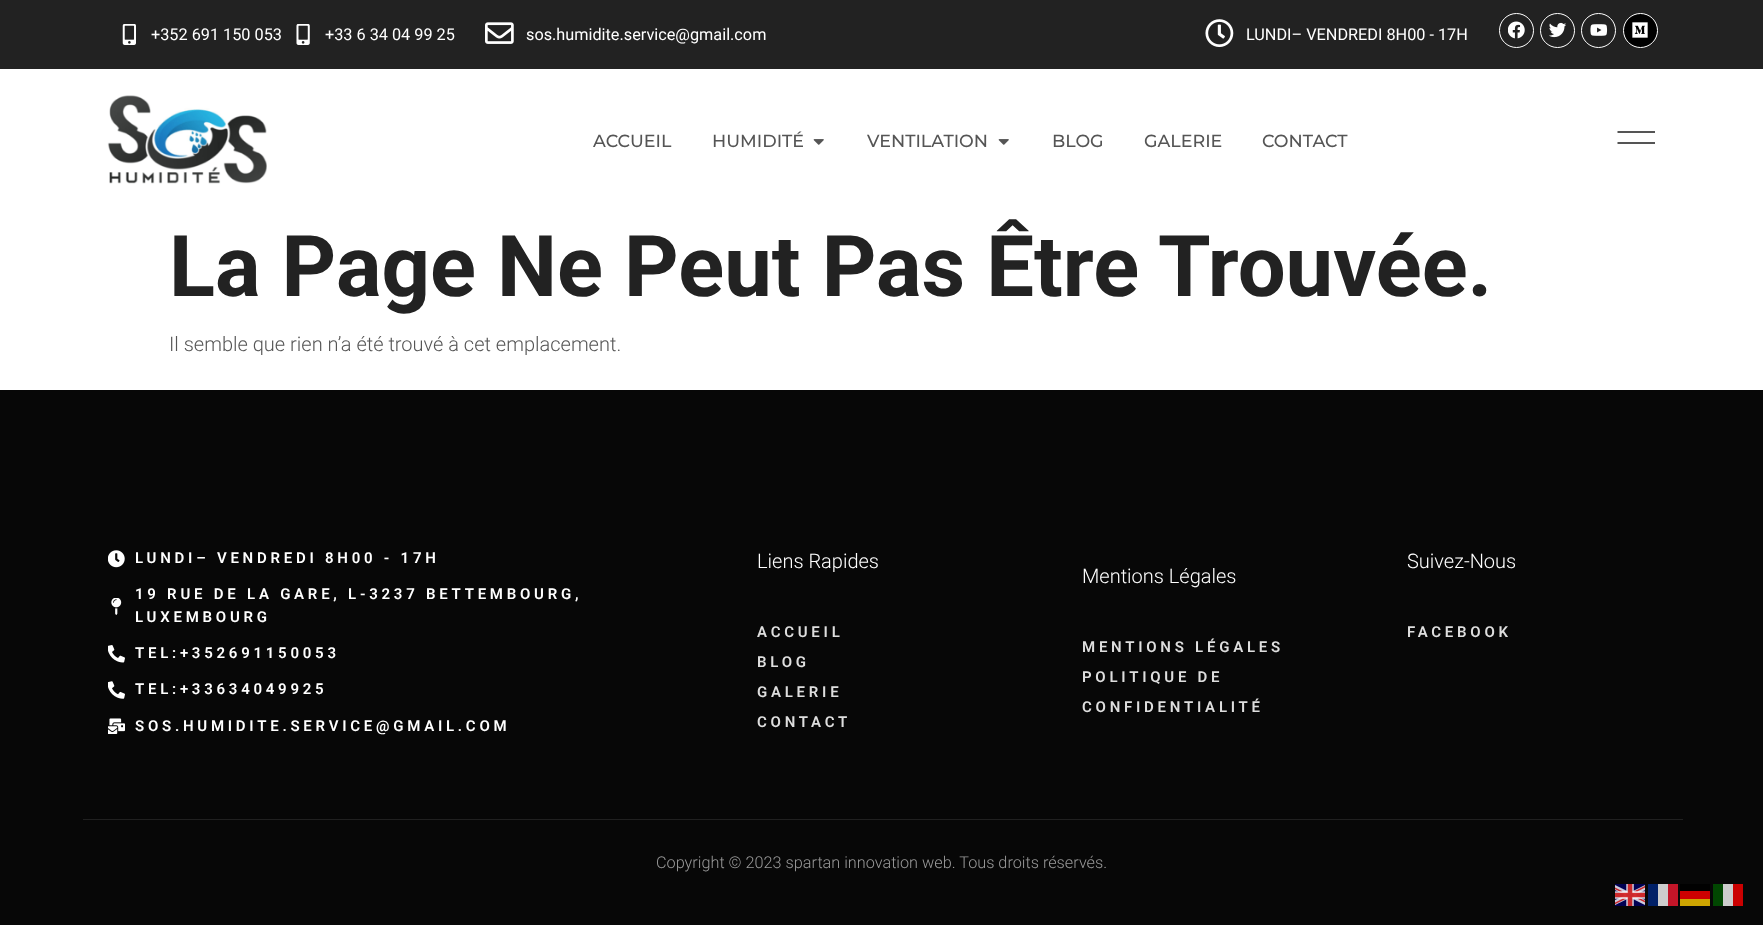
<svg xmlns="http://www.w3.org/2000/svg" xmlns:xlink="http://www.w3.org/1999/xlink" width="1763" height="927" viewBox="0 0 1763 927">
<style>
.cls-1{font:16.25px Roboto;fill:#ffffff}
.cls-2{font:500 17.5px Montserrat;fill:#555555}
.cls-3{font:bold 85px Roboto;fill:#222222}
.cls-4{font:300 20px Roboto;fill:#555555}
.cls-5{font:600 15px Roboto;letter-spacing:3.75px;fill:#ffffff}
.cls-6{font:300 20px Roboto;fill:#ffffff}
.cls-7{font:600 15px Roboto;letter-spacing:3.75px;fill:#dedede}
.cls-8{font:300 16.25px Roboto;fill:#999999}
</style>
<rect width="100%" height="100%" fill="#ffffff"/>
<rect fill="#222222" x="0" y="0" width="1763" height="69"/>
<image xlink:href="image0.png" x="122" y="24" width="14" height="21"/>
<image xlink:href="image1.png" x="296" y="24" width="14" height="21"/>
<image xlink:href="image2.png" x="485" y="22" width="29" height="22"/>
<image xlink:href="image3.png" x="1205" y="19" width="29" height="29"/>
<circle fill="none" stroke="#ffffff" cx="1516.5" cy="30.5" r="17"/>
<image xlink:href="image4.png" x="1508" y="21" width="17" height="18"/>
<circle fill="none" stroke="#ffffff" cx="1557.5" cy="30.5" r="17"/>
<image xlink:href="image5.png" x="1549" y="22" width="17" height="16"/>
<circle fill="none" stroke="#ffffff" cx="1598.5" cy="30.5" r="17"/>
<image xlink:href="image6.png" x="1590" y="24" width="18" height="12"/>
<circle fill="#000000" stroke="#ffffff" cx="1640.5" cy="30.5" r="17"/>
<image xlink:href="image7.png" x="1632" y="22" width="16" height="16"/>
<image xlink:href="image8.png" x="107" y="95" width="160" height="89"/>
<image xlink:href="image9.png" x="813" y="139" width="11" height="6"/>
<image xlink:href="image9.png" x="998" y="139" width="11" height="6"/>
<path fill="#555555" d="M1617.5 131V133H1655V131ZM1617.5 142V144H1655V142Z"/>
<rect fill="#070707" x="0" y="390" width="1763" height="535"/>
<image xlink:href="image10.png" x="108" y="550" width="17" height="18"/>
<image xlink:href="image11.png" x="111" y="598" width="11" height="17"/>
<image xlink:href="image12.png" x="108" y="645" width="17" height="18"/>
<image xlink:href="image13.png" x="108" y="681" width="17" height="18"/>
<image xlink:href="image14.png" x="108" y="718" width="17" height="16"/>
<rect fill="#202020" x="83" y="819" width="1600" height="1"/>
<image xlink:href="image15.png" x="1615" y="884" width="30" height="22"/>
<rect fill="#012067" x="1648" y="884" width="10" height="22"/>
<rect fill="#cdcdcd" x="1658" y="884" width="10" height="22"/>
<rect fill="#c41528" x="1668" y="884" width="10" height="22"/>
<rect fill="#010101" x="1680" y="884" width="30" height="7"/>
<rect fill="#014701" x="1713" y="884" width="10" height="22"/>
<rect fill="#cdcdcd" x="1723" y="884" width="10" height="22"/>
<rect fill="#cb0101" x="1733" y="884" width="10" height="22"/>
<rect fill="#cd0101" x="1680" y="891" width="30" height="8"/>
<rect fill="#cda501" x="1680" y="899" width="30" height="7"/>
<text class="cls-1" x="151" y="40">+352 691 150 053</text>
<text class="cls-1" x="325" y="40">+33 6 34 04 99 25</text>
<text class="cls-1" x="526" y="40">sos.humidite.service@gmail.com</text>
<text class="cls-1" x="1246" y="40">LUNDI– VENDREDI 8H00 - 17H</text>
<text class="cls-2" x="593" y="147">ACCUEIL</text>
<text class="cls-2" x="712" y="147">HUMIDITÉ</text>
<text class="cls-2" x="867" y="147">VENTILATION</text>
<text class="cls-2" x="1052" y="147">BLOG</text>
<text class="cls-2" x="1144" y="147">GALERIE</text>
<text class="cls-2" x="1262" y="147">CONTACT</text>
<text class="cls-3" x="169" y="296">La Page Ne Peut Pas Être Trouvée.</text>
<text class="cls-4" x="169" y="351">Il semble que rien n’a été trouvé à cet emplacement.</text>
<text class="cls-5" x="135" y="563">LUNDI– VENDREDI 8H00 - 17H</text>
<text class="cls-5"><tspan x="135" y="599">19 RUE DE LA GARE, L-3237 BETTEMBOURG,</tspan><tspan x="135" y="622">LUXEMBOURG</tspan></text>
<text class="cls-5" x="135" y="658">TEL:+352691150053</text>
<text class="cls-5" x="135" y="694">TEL:+33634049925</text>
<text class="cls-5" x="135" y="731">SOS.HUMIDITE.SERVICE@GMAIL.COM</text>
<text class="cls-6" x="757" y="568">Liens Rapides</text>
<text class="cls-7" x="757" y="637">ACCUEIL</text>
<text class="cls-7" x="757" y="667">BLOG</text>
<text class="cls-7" x="757" y="697">GALERIE</text>
<text class="cls-7" x="757" y="727">CONTACT</text>
<text class="cls-6" x="1082" y="583">Mentions Légales</text>
<text class="cls-7" x="1082" y="652">MENTIONS LÉGALES</text>
<text class="cls-7" x="1082" y="682">POLITIQUE DE</text>
<text class="cls-7" x="1082" y="712">CONFIDENTIALITÉ</text>
<text class="cls-6" x="1407" y="568">Suivez-Nous</text>
<text class="cls-7" x="1407" y="637">FACEBOOK</text>
<text class="cls-8" x="656" y="868">Copyright © 2023 spartan innovation web. Tous droits réservés.</text>
</svg>
